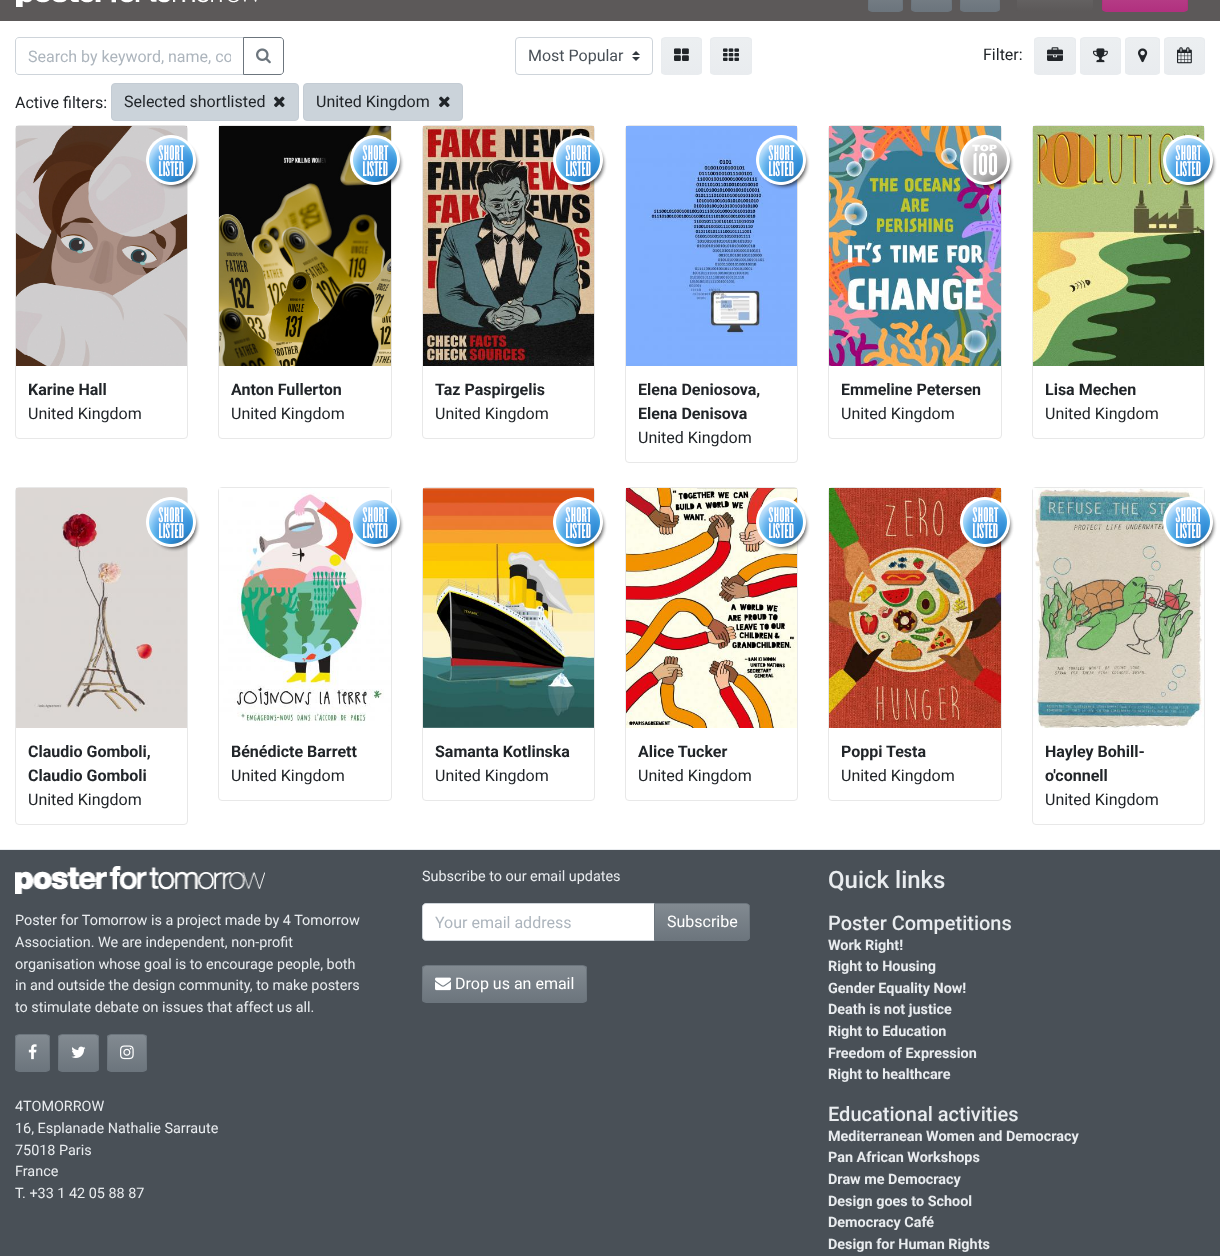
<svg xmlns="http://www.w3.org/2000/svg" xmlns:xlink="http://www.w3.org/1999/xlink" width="1220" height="1256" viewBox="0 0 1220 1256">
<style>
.cls-1{font:16px Roboto;fill:#adb5bd}
.cls-2{font:16px Roboto;fill:#495057}
.cls-3{font:16px Roboto;fill:#212529}
.cls-4{font:bold 16px Roboto;fill:#212529}
.cls-5{font:14.4px Roboto;fill:#e9ecef}
.cls-6{font:16px Roboto;fill:#ffffff}
.cls-7{font:500 24px Roboto;fill:#e9ecef}
.cls-8{font:500 20px Roboto;fill:#e9ecef}
.cls-9{font:bold 14.4px Roboto;fill:#e9ecef}
</style>
<defs>
<clipPath id="clip1"><rect x="868" y="-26" width="35" height="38" rx="4"/></clipPath>
<linearGradient id="g1" gradientUnits="userSpaceOnUse" x1="886" y1="-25" x2="886" y2="11"><stop offset="0" stop-color="#828a91"/><stop offset="1" stop-color="#6c757d"/></linearGradient>
<clipPath id="clip2"><rect x="911" y="-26" width="41" height="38" rx="4"/></clipPath>
<linearGradient id="g2" gradientUnits="userSpaceOnUse" x1="932" y1="-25" x2="932" y2="11"><stop offset="0" stop-color="#828a91"/><stop offset="1" stop-color="#6c757d"/></linearGradient>
<clipPath id="clip3"><rect x="960" y="-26" width="40" height="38" rx="4"/></clipPath>
<linearGradient id="g3" gradientUnits="userSpaceOnUse" x1="980" y1="-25" x2="980" y2="11"><stop offset="0" stop-color="#828a91"/><stop offset="1" stop-color="#6c757d"/></linearGradient>
<clipPath id="clip4"><rect x="1016" y="-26" width="78" height="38" rx="4"/></clipPath>
<linearGradient id="g4" gradientUnits="userSpaceOnUse" x1="1055" y1="-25" x2="1055" y2="11"><stop offset="0" stop-color="#747272"/><stop offset="1" stop-color="#5c5959"/></linearGradient>
<clipPath id="clip5"><rect x="1102" y="-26" width="86" height="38" rx="4"/></clipPath>
<linearGradient id="g5" gradientUnits="userSpaceOnUse" x1="1145" y1="-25" x2="1145" y2="11"><stop offset="0" stop-color="#bd5092"/><stop offset="1" stop-color="#b1317f"/></linearGradient>
<clipPath id="clip6"><rect x="661" y="37" width="41" height="38" rx="4"/></clipPath>
<linearGradient id="g6" gradientUnits="userSpaceOnUse" x1="682" y1="38" x2="682" y2="74"><stop offset="0" stop-color="#eceff1"/><stop offset="1" stop-color="#e9ecef"/></linearGradient>
<clipPath id="clip7"><rect x="710" y="37" width="42" height="38" rx="4"/></clipPath>
<linearGradient id="g7" gradientUnits="userSpaceOnUse" x1="731" y1="38" x2="731" y2="74"><stop offset="0" stop-color="#eceff1"/><stop offset="1" stop-color="#e9ecef"/></linearGradient>
<clipPath id="clip8"><rect x="1034" y="37" width="42" height="38" rx="4"/></clipPath>
<linearGradient id="g8" gradientUnits="userSpaceOnUse" x1="1055" y1="38" x2="1055" y2="74"><stop offset="0" stop-color="#eceff1"/><stop offset="1" stop-color="#e9ecef"/></linearGradient>
<clipPath id="clip9"><rect x="1080" y="37" width="41" height="38" rx="4"/></clipPath>
<linearGradient id="g9" gradientUnits="userSpaceOnUse" x1="1101" y1="38" x2="1101" y2="74"><stop offset="0" stop-color="#eceff1"/><stop offset="1" stop-color="#e9ecef"/></linearGradient>
<clipPath id="clip10"><rect x="1125" y="37" width="35" height="38" rx="4"/></clipPath>
<linearGradient id="g10" gradientUnits="userSpaceOnUse" x1="1143" y1="38" x2="1143" y2="74"><stop offset="0" stop-color="#eceff1"/><stop offset="1" stop-color="#e9ecef"/></linearGradient>
<clipPath id="clip11"><rect x="1164" y="37" width="41" height="38" rx="4"/></clipPath>
<linearGradient id="g11" gradientUnits="userSpaceOnUse" x1="1185" y1="38" x2="1185" y2="74"><stop offset="0" stop-color="#eceff1"/><stop offset="1" stop-color="#e9ecef"/></linearGradient>
<clipPath id="clip12"><rect x="15" y="1034" width="35" height="38" rx="4"/></clipPath>
<linearGradient id="g12" gradientUnits="userSpaceOnUse" x1="33" y1="1035" x2="33" y2="1071"><stop offset="0" stop-color="#828a91"/><stop offset="1" stop-color="#6c757d"/></linearGradient>
<clipPath id="clip13"><rect x="58" y="1034" width="41" height="38" rx="4"/></clipPath>
<linearGradient id="g13" gradientUnits="userSpaceOnUse" x1="79" y1="1035" x2="79" y2="1071"><stop offset="0" stop-color="#828a91"/><stop offset="1" stop-color="#6c757d"/></linearGradient>
<clipPath id="clip14"><rect x="107" y="1034" width="40" height="38" rx="4"/></clipPath>
<linearGradient id="g14" gradientUnits="userSpaceOnUse" x1="127" y1="1035" x2="127" y2="1071"><stop offset="0" stop-color="#828a91"/><stop offset="1" stop-color="#6c757d"/></linearGradient>
<clipPath id="clip15"><path d="M654 903H746C748 903 750 905 750 907V937C750 939 748 941 746 941H654Z"/></clipPath>
<linearGradient id="g15" gradientUnits="userSpaceOnUse" x1="702" y1="904" x2="702" y2="940"><stop offset="0" stop-color="#828a91"/><stop offset="1" stop-color="#6c757d"/></linearGradient>
<clipPath id="clip16"><rect x="422" y="965" width="165" height="38" rx="4"/></clipPath>
<linearGradient id="g16" gradientUnits="userSpaceOnUse" x1="505" y1="966" x2="505" y2="1002"><stop offset="0" stop-color="#828a91"/><stop offset="1" stop-color="#6c757d"/></linearGradient>
<clipPath id="clip17"><rect x="28" y="47" width="203" height="19"/></clipPath>
</defs>
<rect width="100%" height="100%" fill="#ffffff"/>
<rect fill="#5c5959" x="0" y="0" width="1220" height="21"/>
<image xlink:href="image0.png" x="16" y="0" width="241" height="7"/>
<g clip-path="url(#clip1)">
<rect fill="url(#g1)" x="868" y="0" width="35" height="11"/>
</g>
<rect fill="none" stroke="#6c757d" x="868.5" y="-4.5" width="34" height="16" rx="3.5"/>
<g clip-path="url(#clip2)">
<rect fill="url(#g2)" x="911" y="0" width="41" height="11"/>
</g>
<rect fill="none" stroke="#6c757d" x="911.5" y="-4.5" width="40" height="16" rx="3.5"/>
<g clip-path="url(#clip3)">
<rect fill="url(#g3)" x="960" y="0" width="40" height="11"/>
</g>
<rect fill="none" stroke="#6c757d" x="960.5" y="-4.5" width="39" height="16" rx="3.5"/>
<g clip-path="url(#clip4)">
<rect fill="url(#g4)" x="1016" y="0" width="78" height="11"/>
</g>
<rect fill="none" stroke="#5c5959" x="1016.5" y="-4.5" width="77" height="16" rx="3.5"/>
<g clip-path="url(#clip5)">
<rect fill="url(#g5)" x="1102" y="0" width="86" height="11"/>
</g>
<rect fill="none" stroke="#b1317f" x="1102.5" y="-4.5" width="85" height="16" rx="3.5"/>
<path fill="none" stroke="#ced4da" d="M19 37.5H243.5V74.5H19C17 74.5 15.5 73 15.5 71V41C15.5 39 17 37.5 19 37.5Z"/>
<path fill="none" stroke="#6c757d" d="M243.5 37.5H280C282 37.5 283.5 39 283.5 41V71C283.5 73 282 74.5 280 74.5H243.5Z"/>
<image xlink:href="image1.png" x="256" y="48" width="15" height="16"/>
<image xlink:href="image2.png" x="632" y="51" width="8" height="10"/>
<rect fill="none" stroke="#ced4da" x="515.5" y="37.5" width="137" height="37" rx="3.5"/>
<g clip-path="url(#clip6)">
<rect fill="url(#g6)" x="661" y="38" width="41" height="36"/>
</g>
<rect fill="none" stroke="#e9ecef" x="661.5" y="37.5" width="40" height="37" rx="3.5"/>
<image xlink:href="image3.png" x="674" y="48" width="15" height="13"/>
<g clip-path="url(#clip7)">
<rect fill="url(#g7)" x="710" y="38" width="42" height="36"/>
</g>
<rect fill="none" stroke="#e9ecef" x="710.5" y="37.5" width="41" height="37" rx="3.5"/>
<image xlink:href="image4.png" x="723" y="48" width="16" height="13"/>
<g clip-path="url(#clip8)">
<rect fill="url(#g8)" x="1034" y="38" width="42" height="36"/>
</g>
<rect fill="none" stroke="#e9ecef" x="1034.5" y="37.5" width="41" height="37" rx="3.5"/>
<image xlink:href="image5.png" x="1047" y="47" width="16" height="14"/>
<g clip-path="url(#clip9)">
<rect fill="url(#g9)" x="1080" y="38" width="41" height="36"/>
</g>
<rect fill="none" stroke="#e9ecef" x="1080.5" y="37.5" width="40" height="37" rx="3.5"/>
<image xlink:href="image6.png" x="1093" y="48" width="15" height="15"/>
<g clip-path="url(#clip10)">
<rect fill="url(#g10)" x="1125" y="38" width="35" height="36"/>
</g>
<rect fill="none" stroke="#e9ecef" x="1125.5" y="37.5" width="34" height="37" rx="3.5"/>
<image xlink:href="image7.png" x="1138" y="48" width="10" height="15"/>
<g clip-path="url(#clip11)">
<rect fill="url(#g11)" x="1164" y="38" width="41" height="36"/>
</g>
<rect fill="none" stroke="#e9ecef" x="1164.5" y="37.5" width="40" height="37" rx="3.5"/>
<image xlink:href="image8.png" x="1177" y="47" width="15" height="17"/>
<rect fill="#cbd3da" stroke="#c4ccd4" x="111.5" y="83.5" width="187" height="37" rx="3.5"/>
<image xlink:href="image9.png" x="274" y="96" width="11" height="12"/>
<rect fill="#cbd3da" stroke="#c4ccd4" x="303.5" y="83.5" width="159" height="37" rx="3.5"/>
<image xlink:href="image9.png" x="439" y="96" width="11" height="12"/>
<rect fill="none" stroke="#e8e8e8" x="15.5" y="125.5" width="172" height="313" rx="3.5"/>
<image xlink:href="image10.png" x="16" y="126" width="171" height="240"/>
<image xlink:href="image11.png" x="146" y="135" width="54" height="55"/>
<rect fill="none" stroke="#e8e8e8" x="218.5" y="125.5" width="173" height="313" rx="3.5"/>
<image xlink:href="image12.png" x="219" y="126" width="172" height="240"/>
<image xlink:href="image13.png" x="350" y="135" width="54" height="51"/>
<rect fill="none" stroke="#e8e8e8" x="422.5" y="125.5" width="172" height="313" rx="3.5"/>
<image xlink:href="image14.png" x="423" y="126" width="171" height="240"/>
<image xlink:href="image15.png" x="553" y="135" width="54" height="55"/>
<rect fill="none" stroke="#e8e8e8" x="625.5" y="125.5" width="172" height="337" rx="3.5"/>
<image xlink:href="image16.png" x="626" y="126" width="171" height="240"/>
<image xlink:href="image17.png" x="756" y="135" width="54" height="55"/>
<rect fill="none" stroke="#e8e8e8" x="828.5" y="125.5" width="173" height="313" rx="3.5"/>
<image xlink:href="image18.png" x="829" y="126" width="172" height="240"/>
<image xlink:href="image19.png" x="960" y="135" width="54" height="54"/>
<rect fill="none" stroke="#e8e8e8" x="1032.5" y="125.5" width="172" height="313" rx="3.5"/>
<image xlink:href="image20.png" x="1033" y="126" width="171" height="240"/>
<image xlink:href="image21.png" x="1163" y="135" width="54" height="55"/>
<rect fill="none" stroke="#e8e8e8" x="15.5" y="487.5" width="172" height="337" rx="3.5"/>
<image xlink:href="image22.png" x="16" y="488" width="171" height="240"/>
<image xlink:href="image23.png" x="146" y="497" width="54" height="55"/>
<rect fill="none" stroke="#e8e8e8" x="218.5" y="487.5" width="173" height="313" rx="3.5"/>
<image xlink:href="image24.png" x="219" y="488" width="172" height="238"/>
<image xlink:href="image25.png" x="350" y="500" width="54" height="52"/>
<rect fill="none" stroke="#e8e8e8" x="422.5" y="487.5" width="172" height="313" rx="3.5"/>
<image xlink:href="image26.png" x="423" y="488" width="171" height="240"/>
<image xlink:href="image27.png" x="553" y="497" width="54" height="55"/>
<rect fill="none" stroke="#e8e8e8" x="625.5" y="487.5" width="172" height="313" rx="3.5"/>
<image xlink:href="image28.png" x="626" y="488" width="171" height="240"/>
<image xlink:href="image29.png" x="756" y="497" width="54" height="55"/>
<rect fill="none" stroke="#e8e8e8" x="828.5" y="487.5" width="173" height="313" rx="3.5"/>
<image xlink:href="image30.png" x="829" y="488" width="172" height="240"/>
<image xlink:href="image31.png" x="960" y="497" width="54" height="55"/>
<rect fill="none" stroke="#e8e8e8" x="1032.5" y="487.5" width="172" height="337" rx="3.5"/>
<image xlink:href="image32.png" x="1033" y="488" width="171" height="240"/>
<image xlink:href="image33.png" x="1163" y="497" width="54" height="55"/>
<rect fill="#495057" x="0" y="850" width="1220" height="406"/>
<rect fill="#e9ecef" x="0" y="849" width="1220" height="1"/>
<image xlink:href="image34.png" x="15" y="866" width="250" height="28"/>
<g clip-path="url(#clip12)">
<rect fill="url(#g12)" x="15" y="1035" width="35" height="36"/>
</g>
<rect fill="none" stroke="#6c757d" x="15.5" y="1034.5" width="34" height="37" rx="3.5"/>
<image xlink:href="image35.png" x="28" y="1044" width="9" height="16"/>
<g clip-path="url(#clip13)">
<rect fill="url(#g13)" x="58" y="1035" width="41" height="36"/>
</g>
<rect fill="none" stroke="#6c757d" x="58.5" y="1034.5" width="40" height="37" rx="3.5"/>
<image xlink:href="image36.png" x="71" y="1046" width="15" height="12"/>
<g clip-path="url(#clip14)">
<rect fill="url(#g14)" x="107" y="1035" width="40" height="36"/>
</g>
<rect fill="none" stroke="#6c757d" x="107.5" y="1034.5" width="39" height="37" rx="3.5"/>
<image xlink:href="image37.png" x="120" y="1045" width="14" height="15"/>
<path fill="#ffffff" stroke="#ced4da" d="M426 903.5H654.5V940.5H426C424 940.5 422.5 939 422.5 937V907C422.5 905 424 903.5 426 903.5Z"/>
<g clip-path="url(#clip15)">
<rect fill="url(#g15)" x="655" y="904" width="95" height="36"/>
</g>
<path fill="none" stroke="#6c757d" d="M654.5 903.5H746C748 903.5 749.5 905 749.5 907V937C749.5 939 748 940.5 746 940.5H654.5Z"/>
<g clip-path="url(#clip16)">
<rect fill="url(#g16)" x="422" y="966" width="165" height="36"/>
</g>
<rect fill="none" stroke="#6c757d" x="422.5" y="965.5" width="164" height="37" rx="3.5"/>
<image xlink:href="image38.png" x="435" y="977" width="16" height="14"/>
<g clip-path="url(#clip17)">
<text class="cls-1" x="28" y="62">Search by keyword, name, co</text>
</g>
<text class="cls-2" x="528" y="61">Most Popular</text>
<text class="cls-3" x="983" y="60">Filter:</text>
<text class="cls-3" x="15" y="108">Active filters:</text>
<text class="cls-3" x="124" y="107">Selected shortlisted</text>
<text class="cls-3" x="316" y="107">United Kingdom</text>
<text class="cls-4" x="28" y="395">Karine Hall</text>
<text class="cls-3" x="28" y="419">United Kingdom</text>
<text class="cls-4" x="231" y="395">Anton Fullerton</text>
<text class="cls-3" x="231" y="419">United Kingdom</text>
<text class="cls-4" x="435" y="395">Taz Paspirgelis</text>
<text class="cls-3" x="435" y="419">United Kingdom</text>
<text class="cls-4"><tspan x="638" y="395">Elena Deniosova,</tspan><tspan x="638" y="419">Elena Denisova</tspan></text>
<text class="cls-3" x="638" y="443">United Kingdom</text>
<text class="cls-4" x="841" y="395">Emmeline Petersen</text>
<text class="cls-3" x="841" y="419">United Kingdom</text>
<text class="cls-4" x="1045" y="395">Lisa Mechen</text>
<text class="cls-3" x="1045" y="419">United Kingdom</text>
<text class="cls-4"><tspan x="28" y="757">Claudio Gomboli,</tspan><tspan x="28" y="781">Claudio Gomboli</tspan></text>
<text class="cls-3" x="28" y="805">United Kingdom</text>
<text class="cls-4" x="231" y="757">Bénédicte Barrett</text>
<text class="cls-3" x="231" y="781">United Kingdom</text>
<text class="cls-4" x="435" y="757">Samanta Kotlinska</text>
<text class="cls-3" x="435" y="781">United Kingdom</text>
<text class="cls-4" x="638" y="757">Alice Tucker</text>
<text class="cls-3" x="638" y="781">United Kingdom</text>
<text class="cls-4" x="841" y="757">Poppi Testa</text>
<text class="cls-3" x="841" y="781">United Kingdom</text>
<text class="cls-4"><tspan x="1045" y="757">Hayley Bohill-</tspan><tspan x="1045" y="781">o'connell</tspan></text>
<text class="cls-3" x="1045" y="805">United Kingdom</text>
<text class="cls-5"><tspan x="15" y="925">Poster for Tomorrow is a project made by 4 Tomorrow</tspan><tspan x="15" y="947">Association. We are independent, non-profit</tspan><tspan x="15" y="969">organisation whose goal is to encourage people, both</tspan><tspan x="15" y="990">in and outside the design community, to make posters</tspan><tspan x="15" y="1012">to stimulate debate on issues that affect us all.</tspan></text>
<text class="cls-5"><tspan x="15" y="1111">4TOMORROW</tspan><tspan x="15" y="1133">16, Esplanade Nathalie Sarraute</tspan><tspan x="15" y="1155">75018 Paris</tspan><tspan x="15" y="1176">France</tspan><tspan x="15" y="1198">T. +33 1 42 05 88 87</tspan></text>
<text class="cls-5" x="422" y="881">Subscribe to our email updates</text>
<text class="cls-1" x="435" y="928">Your email address</text>
<text class="cls-6" x="667" y="927">Subscribe</text>
<text class="cls-6" x="455" y="989">Drop us an email</text>
<text class="cls-7" x="828" y="888">Quick links</text>
<text class="cls-8" x="828" y="930">Poster Competitions</text>
<text class="cls-9"><tspan x="828" y="950">Work Right!</tspan><tspan x="828" y="971">Right to Housing</tspan><tspan x="828" y="993">Gender Equality Now!</tspan><tspan x="828" y="1014">Death is not justice</tspan><tspan x="828" y="1036">Right to Education</tspan><tspan x="828" y="1058">Freedom of Expression</tspan><tspan x="828" y="1079">Right to healthcare</tspan></text>
<text class="cls-8" x="828" y="1121">Educational activities</text>
<text class="cls-9"><tspan x="828" y="1141">Mediterranean Women and Democracy</tspan><tspan x="828" y="1162">Pan African Workshops</tspan><tspan x="828" y="1184">Draw me Democracy</tspan><tspan x="828" y="1206">Design goes to School</tspan><tspan x="828" y="1227">Democracy Café</tspan><tspan x="828" y="1249">Design for Human Rights</tspan></text>
</svg>
